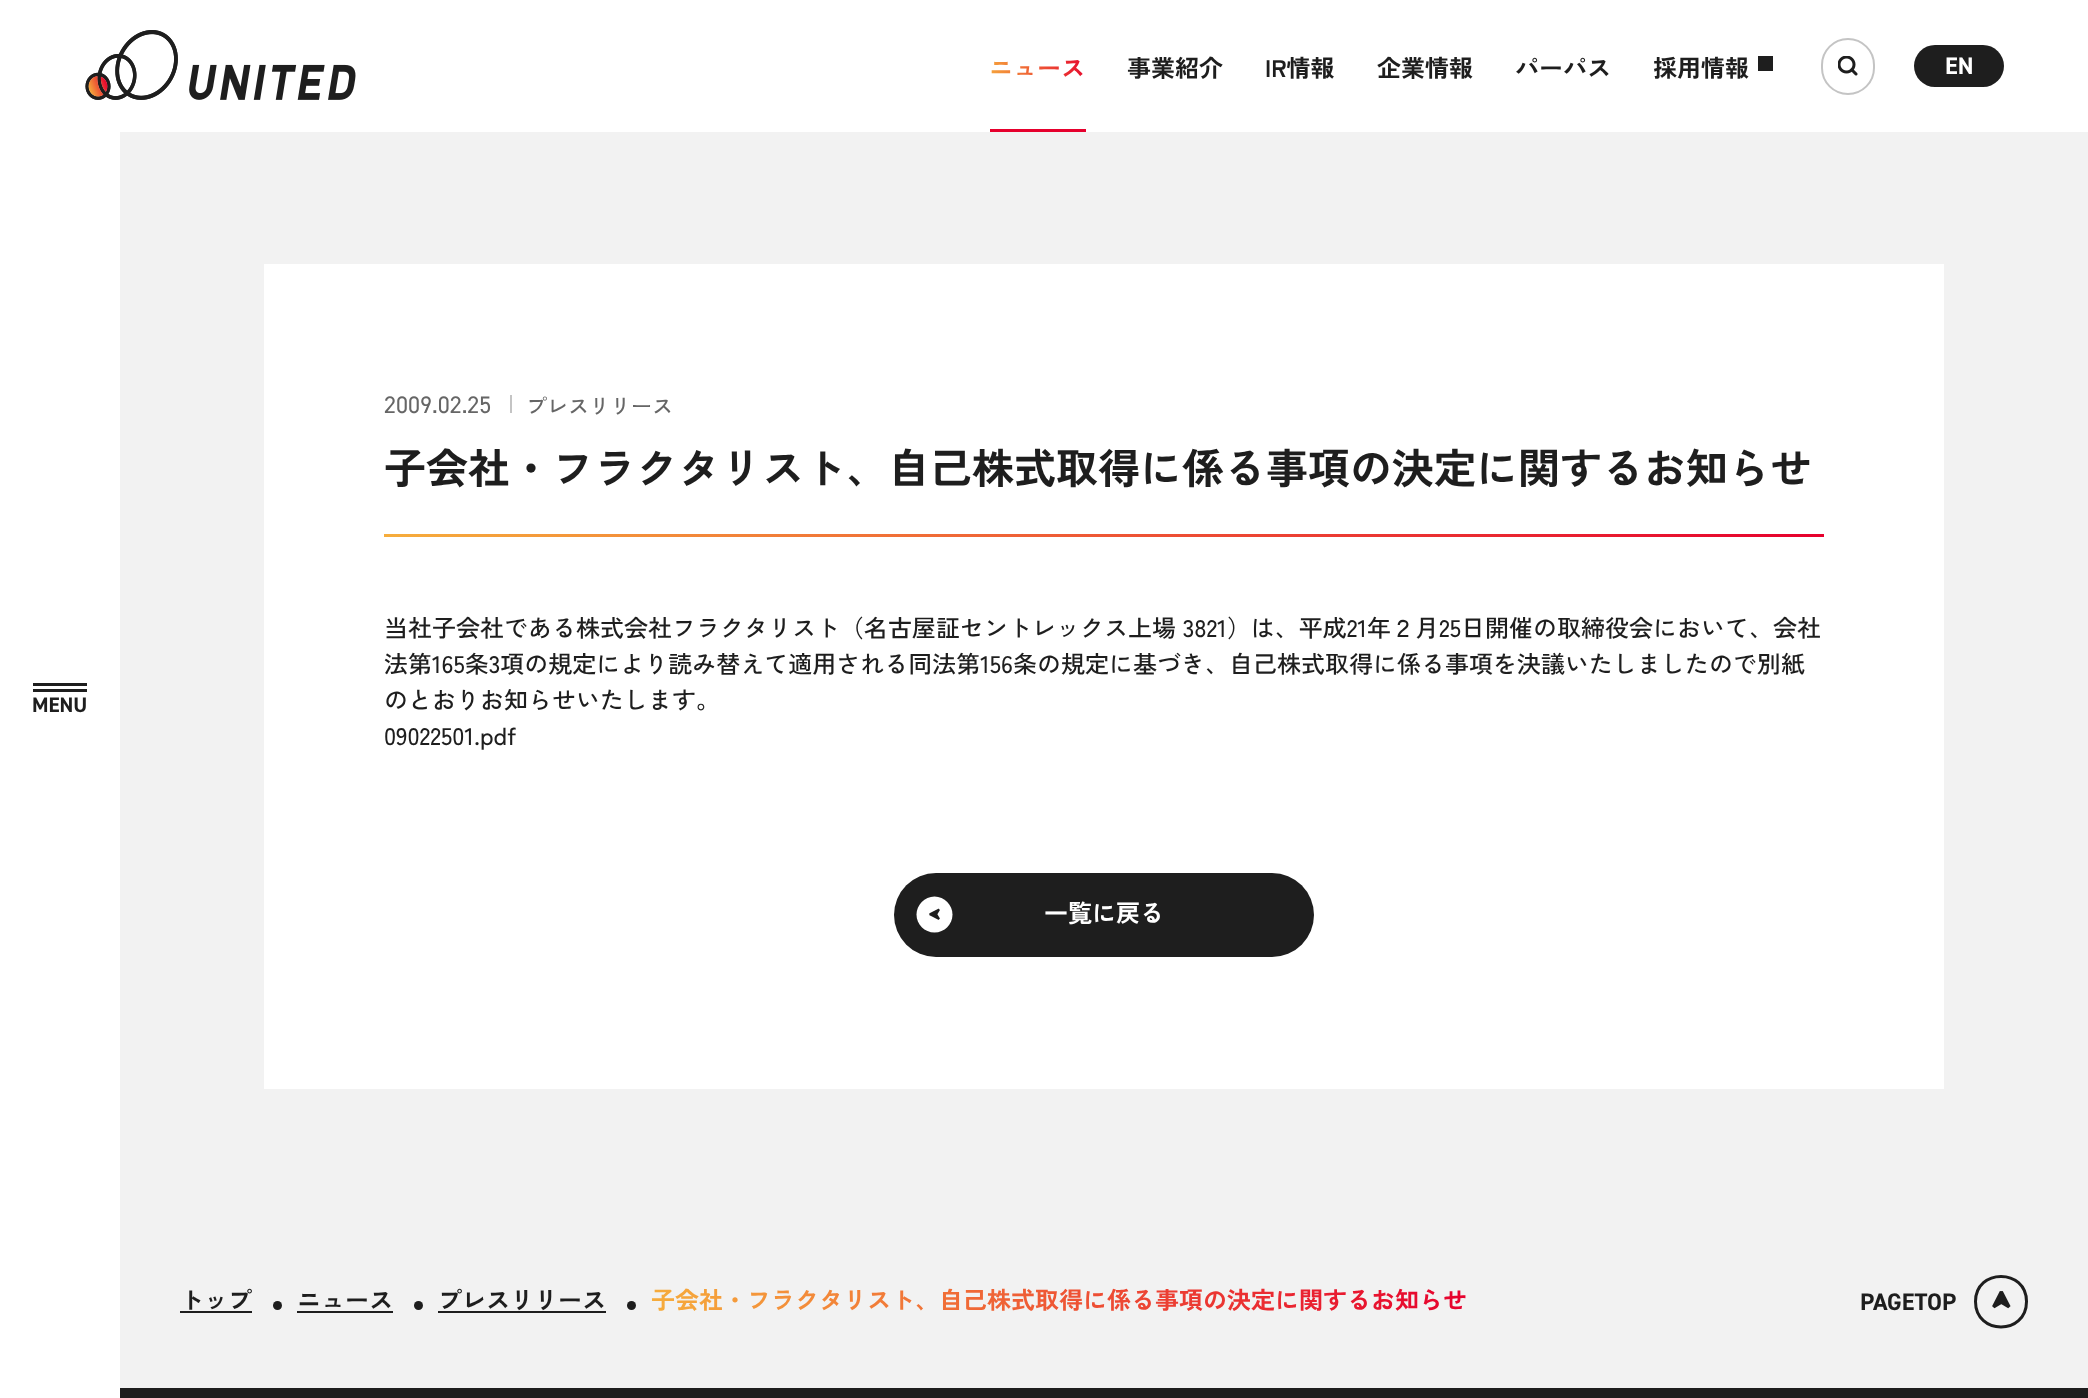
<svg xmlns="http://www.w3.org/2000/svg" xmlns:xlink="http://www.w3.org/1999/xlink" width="2088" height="1398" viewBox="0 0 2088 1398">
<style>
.cls-1{font:bold 24px Zen Kaku Gothic New;fill:url(#g1)}
.cls-2{font:bold 24px Zen Kaku Gothic New;fill:#1e1e1e}
.cls-3{font:bold 24px 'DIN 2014';fill:#ffffff}
.cls-4{font:bold 21px 'DIN 2014';fill:#1e1e1e}
.cls-5{font:24px 'DIN 2014';fill:#666666}
.cls-6{font:500 21px Zen Kaku Gothic New;fill:#666666}
.cls-7{font:bold 42px Zen Kaku Gothic New;fill:#1e1e1e}
.cls-8{font:500 24px Zen Kaku Gothic New;fill:#1e1e1e}
.cls-9{font:bold 24px Zen Kaku Gothic New;fill:#ffffff}
.cls-10{font:bold 24px Zen Kaku Gothic New;fill:url(#g2)}
.cls-11{font:bold 24px 'DIN 2014';fill:#1e1e1e}
</style>
<defs>
<linearGradient id="g1" gradientUnits="userSpaceOnUse" x1="984" y1="77" x2="1091" y2="55"><stop offset="0" stop-color="#f6ad3c"/><stop offset="1" stop-color="#e6002d"/></linearGradient>
<linearGradient id="g2" gradientUnits="userSpaceOnUse" x1="665" y1="1383" x2="1453" y2="1219"><stop offset="0" stop-color="#f6ad3c"/><stop offset="1" stop-color="#e6002d"/></linearGradient>
<linearGradient id="g3" gradientUnits="userSpaceOnUse" x1="414" y1="680" x2="1794" y2="391"><stop offset="0" stop-color="#f6ad3c"/><stop offset="1" stop-color="#e6002d"/></linearGradient>
</defs>
<rect width="100%" height="100%" fill="#f2f2f2"/>
<rect fill="#ffffff" x="0" y="0" width="2088" height="132"/>
<image xlink:href="image0.png" x="85" y="30" width="271" height="70"/>
<rect fill="#e6002d" x="990" y="129" width="96" height="3"/>
<rect fill="#1e1e1e" x="1758" y="56" width="15" height="15"/>
<rect fill="none" stroke="#c4c4c4" stroke-width="2" x="1822" y="39" width="52" height="55" rx="26"/>
<image xlink:href="image1.png" x="1838" y="56" width="20" height="20"/>
<rect fill="#1e1e1e" x="1914" y="45" width="90" height="42" rx="21"/>
<rect fill="#ffffff" x="0" y="132" width="120" height="1266"/>
<rect fill="#1e1e1e" x="33" y="683" width="54" height="3"/>
<rect fill="#1e1e1e" x="33" y="689" width="54" height="3"/>
<rect fill="#ffffff" x="264" y="264" width="1680" height="825"/>
<rect fill="#c4c4c4" x="510" y="395" width="2" height="18"/>
<rect fill="url(#g3)" x="384" y="534" width="1440" height="3"/>
<rect fill="#1e1e1e" x="894" y="873" width="420" height="84" rx="42"/>
<path fill="#ffffff" d="M934.5 896.5C924.5 896.5 916.5 905 916.5 914.5C916.5 924.5 924.5 932.5 934.5 932.5C944.5 932.5 952.5 924.5 952.5 914.5C952.5 905 944.5 896.5 934.5 896.5Z"/>
<image xlink:href="image2.png" x="929" y="908" width="11" height="12"/>
<rect fill="#1e1e1e" x="180" y="1311" width="72" height="2"/>
<circle fill="#1e1e1e" cx="277.5" cy="1305.5" r="4.5"/>
<rect fill="#1e1e1e" x="297" y="1311" width="96" height="2"/>
<circle fill="#1e1e1e" cx="418.5" cy="1305.5" r="4.5"/>
<rect fill="#1e1e1e" x="438" y="1311" width="168" height="2"/>
<circle fill="#1e1e1e" cx="631.5" cy="1305.5" r="4.5"/>
<rect fill="#1e1e1e" x="120" y="1388" width="1968" height="10"/>
<path fill="none" stroke="#1e1e1e" stroke-width="3" d="M1975.5 1301.5C1975.5 1268 2026.5 1268 2026.5 1301.5C2026.5 1335.5 1975.5 1335.5 1975.5 1301.5Z"/>
<image xlink:href="image3.png" x="1992" y="1291" width="19" height="18"/>
<text class="cls-1" x="989" y="77">ニュース</text>
<text class="cls-2" x="1127" y="77">事業紹介</text>
<text class="cls-2" x="1265" y="77">IR情報</text>
<text class="cls-2" x="1377" y="77">企業情報</text>
<text class="cls-2" x="1515" y="77">パーパス</text>
<text class="cls-2" x="1653" y="77">採用情報</text>
<text class="cls-3" x="1945" y="74">EN</text>
<text class="cls-4" x="32" y="712">MENU</text>
<text class="cls-5" x="384" y="413">2009.02.25</text>
<text class="cls-6" x="526" y="414">プレスリリース</text>
<text class="cls-7" x="384" y="484">子会社・フラクタリスト、自己株式取得に係る事項の決定に関するお知らせ</text>
<text class="cls-8"><tspan x="384" y="637">当社子会社である株式会社フラクタリスト（名古屋証セントレックス上場 3821）は、平成21年２月25日開催の取締役会において、会社</tspan><tspan x="384" y="673">法第165条3項の規定により読み替えて適用される同法第156条の規定に基づき、自己株式取得に係る事項を決議いたしましたので別紙</tspan><tspan x="384" y="709">のとおりお知らせいたします。</tspan><tspan x="384" y="745">09022501.pdf</tspan></text>
<text class="cls-9" x="1044" y="922">一覧に戻る</text>
<text class="cls-2" x="180" y="1309">トップ</text>
<text class="cls-2" x="297" y="1309">ニュース</text>
<text class="cls-2" x="438" y="1309">プレスリリース</text>
<text class="cls-10" x="651" y="1309">子会社・フラクタリスト、自己株式取得に係る事項の決定に関するお知らせ</text>
<text class="cls-11" x="1860" y="1310">PAGETOP</text>
</svg>
